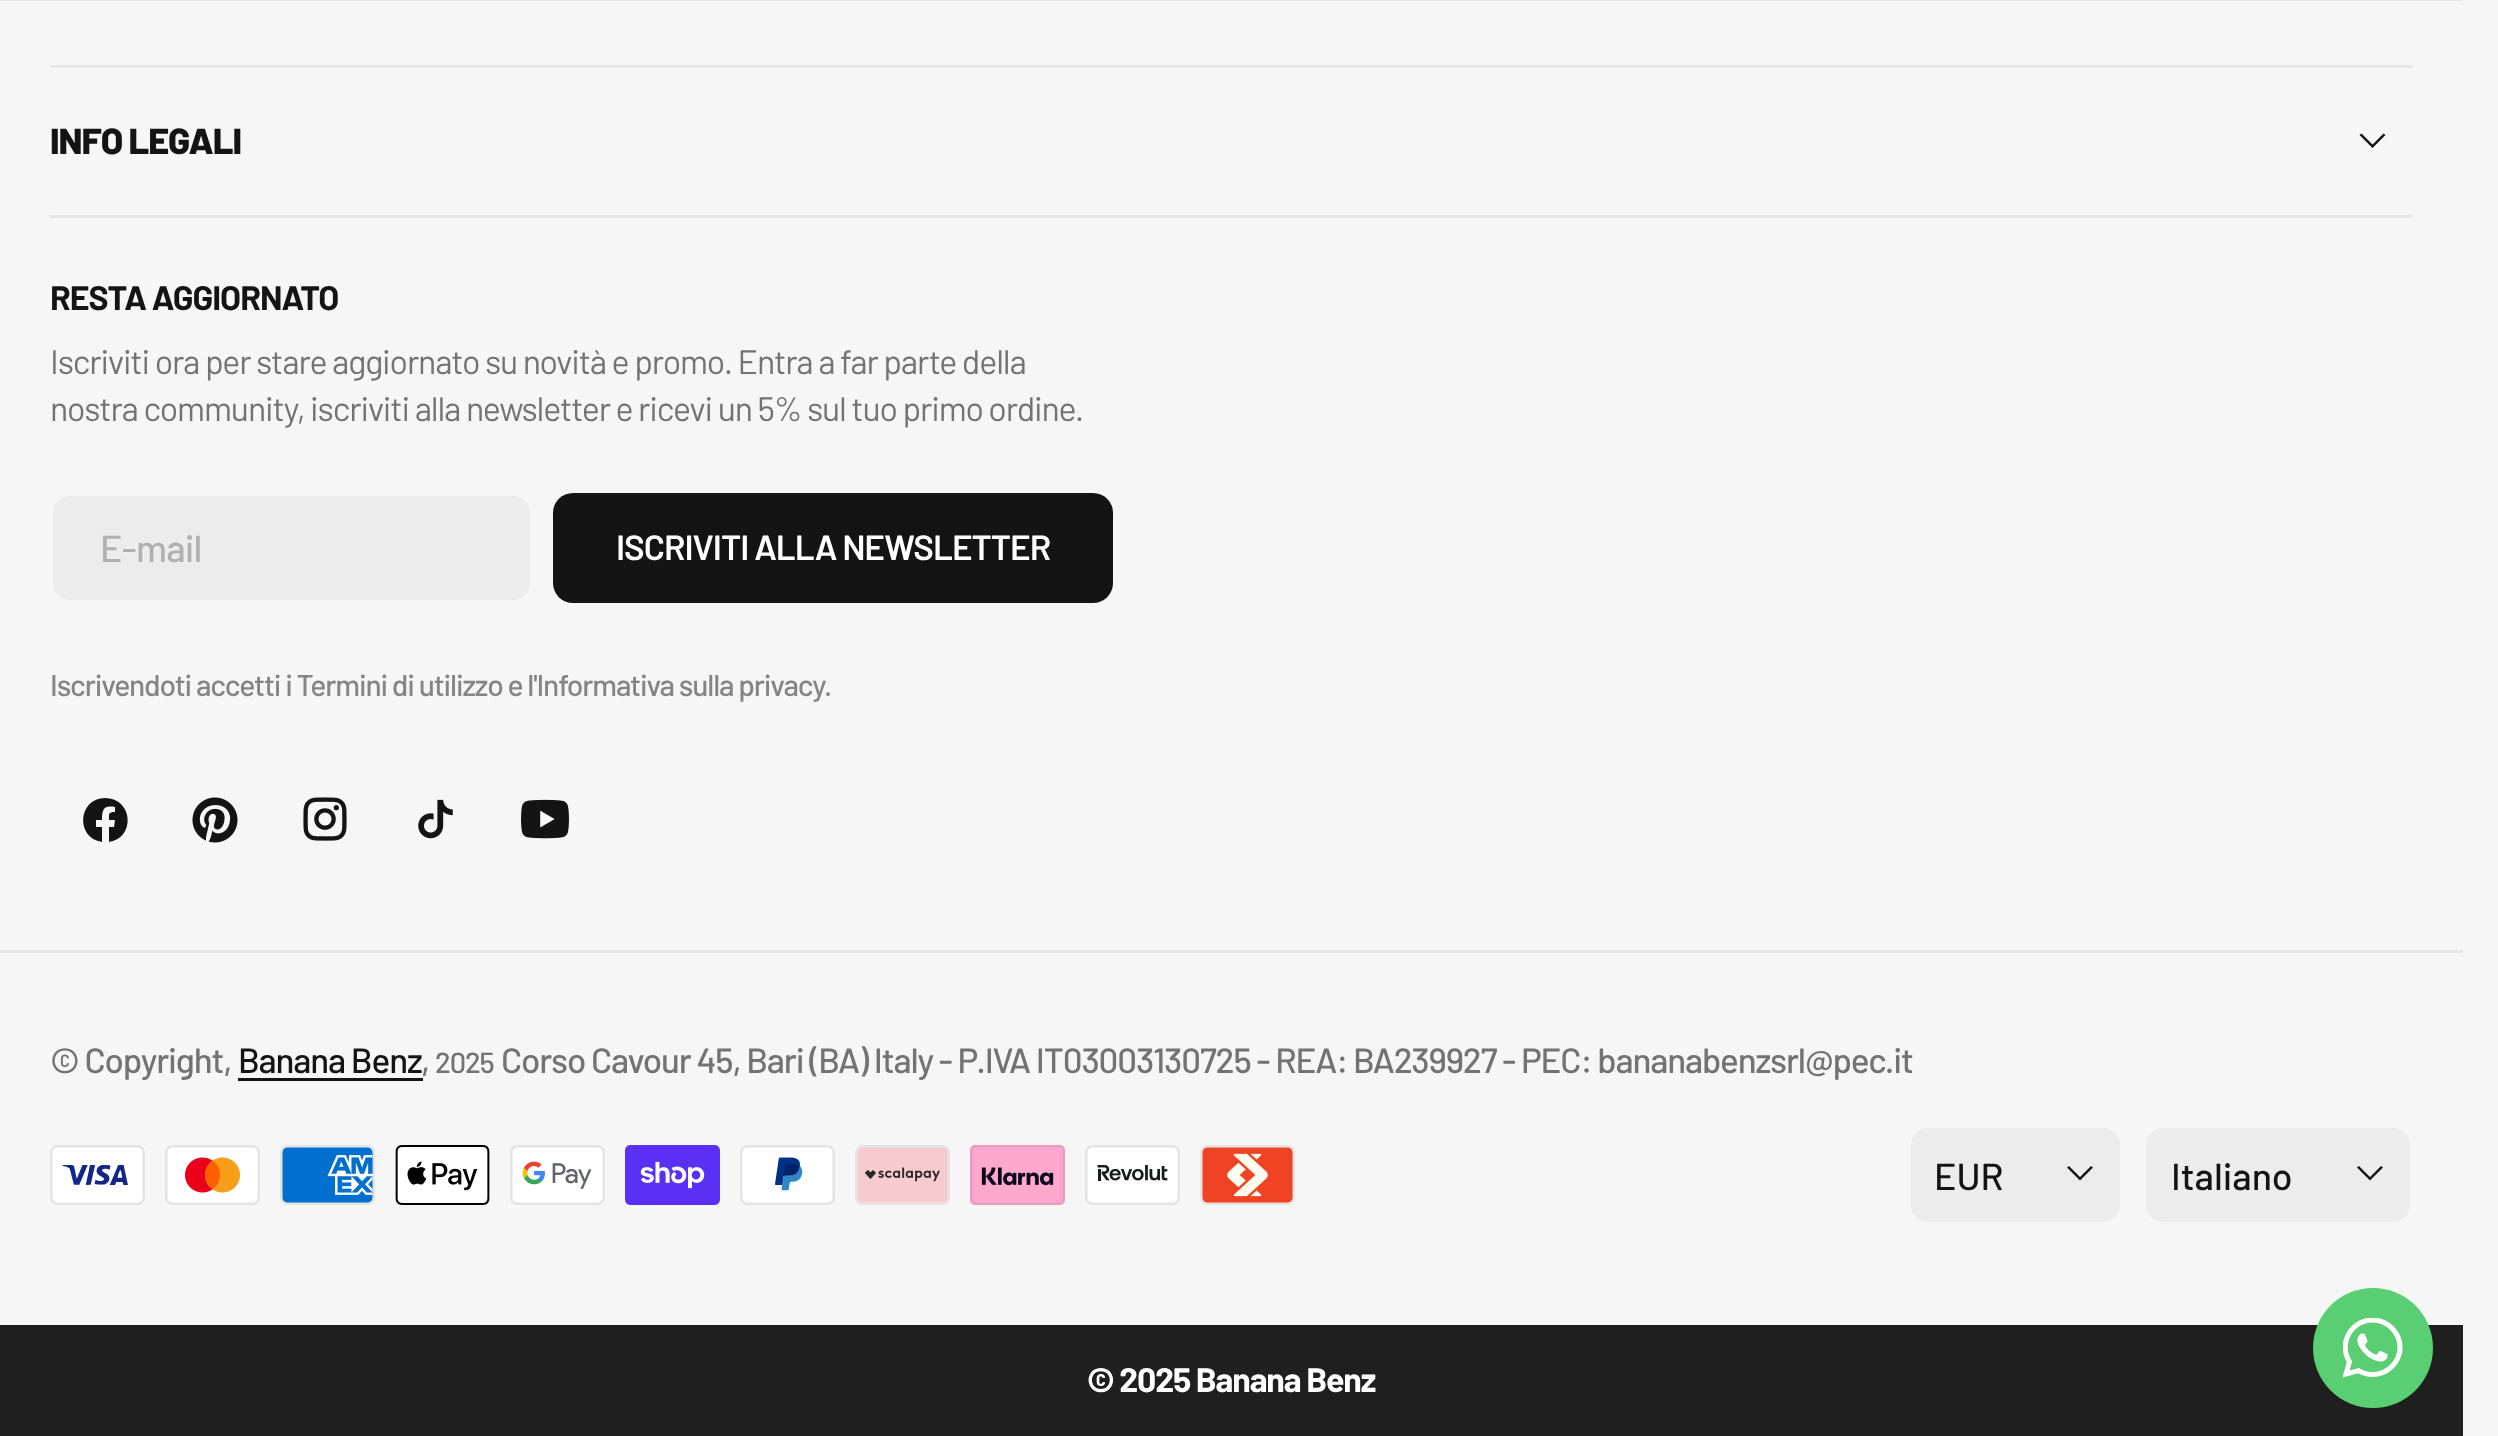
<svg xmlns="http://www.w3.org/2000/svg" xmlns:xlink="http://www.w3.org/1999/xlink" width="2498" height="1436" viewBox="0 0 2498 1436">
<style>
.cls-1{font:800 36.25px Barlow;letter-spacing:-1px;fill:#141414}
.cls-2{font:bold 33.9px Barlow;letter-spacing:-1px;fill:#141414}
.cls-3{font:33.9px Barlow;letter-spacing:-1.15px;fill:#737373}
.cls-4{font:500 37.5px Barlow;letter-spacing:-0.75px;fill:#b0b0b0}
.cls-5{font:600 35px Barlow;letter-spacing:-1.05px;fill:#ffffff}
.cls-6{font:500 30px Barlow;letter-spacing:-1.15px;fill:#858585}
.cls-7{font:500 35px Barlow;letter-spacing:-1.15px;fill:#737373}
.cls-8{font:500 35px Barlow;letter-spacing:-1.15px;fill:#141414}
.cls-9{font:500 29px Barlow;letter-spacing:-1.15px;fill:#737373}
.cls-10{font:500 37.5px Barlow;fill:#141414}
.cls-11{font:bold 33.9px Barlow;letter-spacing:-1.15px;fill:#ffffff}
</style>
<rect width="100%" height="100%" fill="#f6f6f6"/>
<rect fill="#e6e6e6" x="0" y="0" width="2463" height="1"/>
<rect fill="#e6e6e6" x="50" y="65" width="2363" height="3"/>
<rect fill="#e6e6e6" x="50" y="215" width="2363" height="3"/>
<path fill="#141414" d="M2372.5 144.5L2383.5 133.5L2385.5 135L2372.5 148L2359.5 135L2361.5 133.5Z"/>
<rect fill="#ececec" stroke="#f6f6f6" stroke-width="3" x="51.5" y="494.5" width="480" height="107" rx="18.5"/>
<rect fill="#141414" x="553" y="493" width="560" height="110" rx="20"/>
<path fill="#141414" d="M105 798C78 798 75 838 102 842V827H96V820H102C102 809 104 805 115 807V812C108 812 109 814 109 820H115L114 827H109V842C136 838 133 798 105 798Z"/>
<image xlink:href="image0.png" x="192" y="797" width="46" height="46"/>
<image xlink:href="image1.png" x="303" y="797" width="44" height="44"/>
<image xlink:href="image2.png" x="418" y="799" width="35" height="40"/>
<image xlink:href="image3.png" x="521" y="799" width="48" height="40"/>
<rect fill="#e6e6e6" x="0" y="950" width="2463" height="3"/>
<rect fill="#141414" x="238" y="1078" width="185" height="3"/>
<image xlink:href="image4.png" x="50" y="1145" width="95" height="60"/>
<image xlink:href="image5.png" x="165" y="1145" width="95" height="60"/>
<image xlink:href="image6.png" x="280" y="1145" width="95" height="60"/>
<image xlink:href="image7.png" x="395" y="1145" width="95" height="60"/>
<image xlink:href="image8.png" x="510" y="1145" width="95" height="60"/>
<image xlink:href="image9.png" x="625" y="1145" width="95" height="60"/>
<image xlink:href="image10.png" x="740" y="1145" width="95" height="60"/>
<image xlink:href="image11.png" x="855" y="1145" width="95" height="60"/>
<image xlink:href="image12.png" x="970" y="1145" width="95" height="60"/>
<image xlink:href="image13.png" x="1085" y="1145" width="95" height="60"/>
<image xlink:href="image14.png" x="1200" y="1145" width="95" height="60"/>
<rect fill="#ececec" stroke="#f6f6f6" stroke-width="3" x="1909.5" y="1126.5" width="212" height="97" rx="18.5"/>
<path fill="#141414" d="M2080 1177L2091 1166L2093 1167.5L2080 1180.5L2067 1167.5L2069 1166Z"/>
<rect fill="#ececec" stroke="#f6f6f6" stroke-width="3" x="2144.5" y="1126.5" width="267" height="97" rx="18.5"/>
<path fill="#141414" d="M2370 1177L2381 1166L2383 1167.5L2370 1180.5L2357 1167.5L2359 1166Z"/>
<rect fill="#1f1f1f" x="0" y="1325" width="2463" height="111"/>
<circle fill="#59ce72" cx="2373" cy="1348" r="60"/>
<image xlink:href="image15.png" x="2343" y="1318" width="60" height="60"/>
<text class="cls-1" x="50" y="154">INFO LEGALI</text>
<text class="cls-2" x="50" y="310">RESTA AGGIORNATO</text>
<text class="cls-3"><tspan x="50" y="374">Iscriviti ora per stare aggiornato su novità e promo. Entra a far parte della</tspan><tspan x="50" y="421">nostra community, iscriviti alla newsletter e ricevi un 5% sul tuo primo ordine.</tspan></text>
<text class="cls-4" x="100" y="562">E-mail</text>
<text class="cls-5" x="616" y="560">ISCRIVITI ALLA NEWSLETTER</text>
<text class="cls-6" x="50" y="696">Iscrivendoti accetti i Termini di utilizzo e l'Informativa sulla privacy.</text>
<text class="cls-7" x="50" y="1073">© Copyright,</text>
<text class="cls-8" x="238" y="1073">Banana Benz</text>
<text class="cls-7" x="421" y="1073">,</text>
<text class="cls-9" x="435" y="1073">2025</text>
<text class="cls-7" x="501" y="1073">Corso Cavour 45, Bari (BA) Italy - P.IVA IT03003130725 - REA: BA239927 - PEC: bananabenzsrl@pec.it</text>
<text class="cls-10" x="1934" y="1190">EUR</text>
<text class="cls-10" x="2171" y="1190">Italiano</text>
<text class="cls-11" x="1087" y="1392">© 2025 Banana Benz</text>
</svg>
